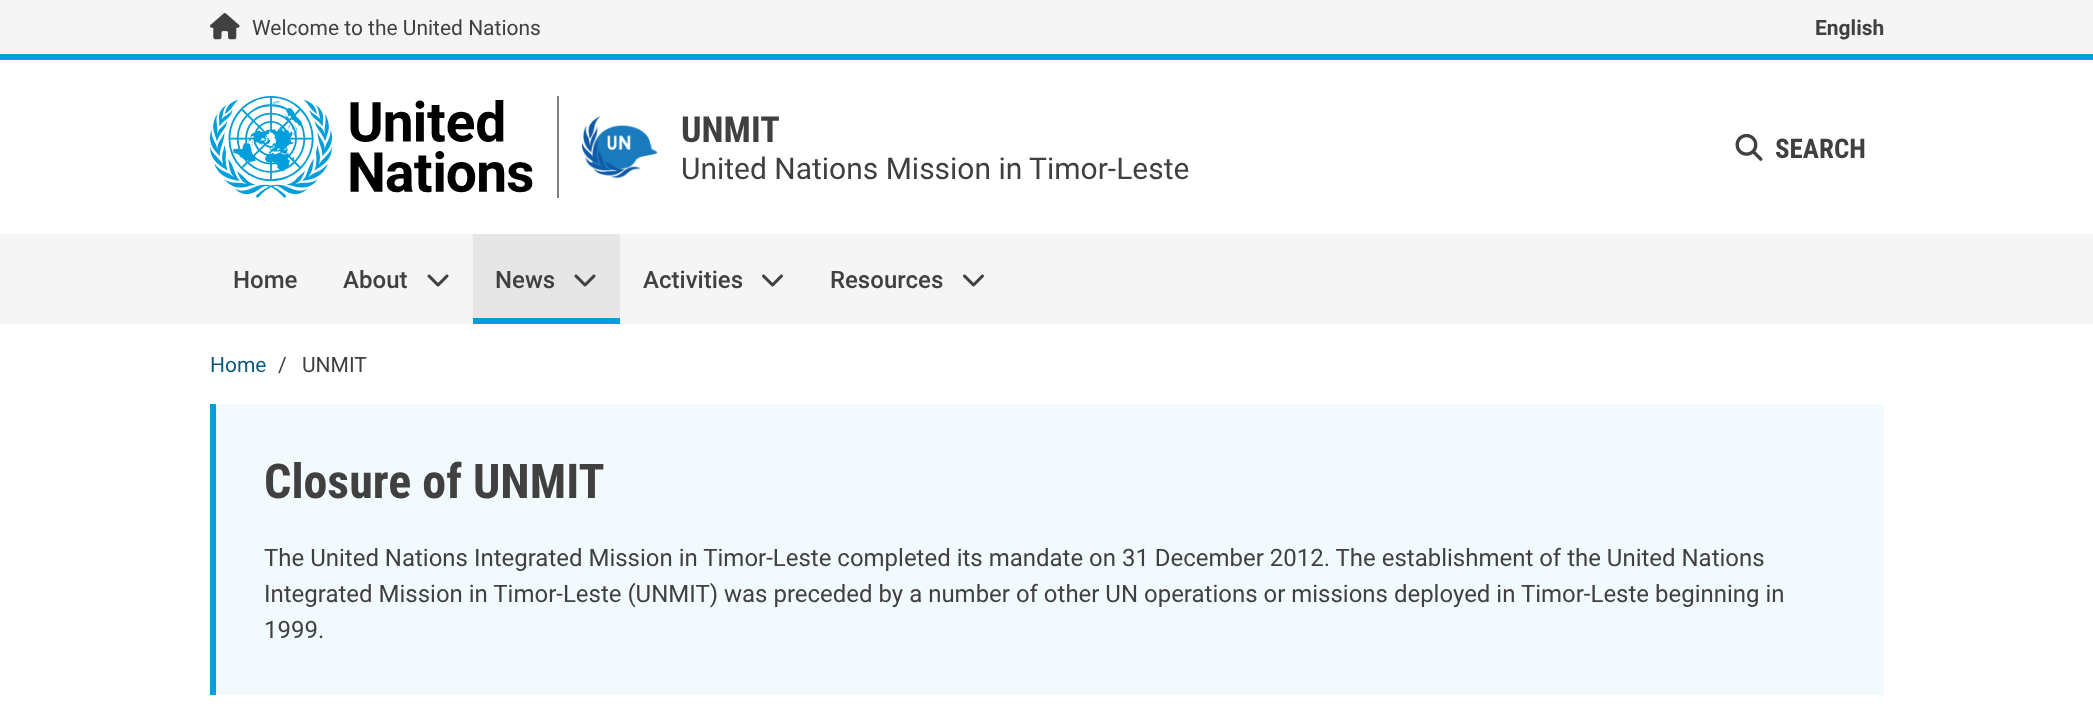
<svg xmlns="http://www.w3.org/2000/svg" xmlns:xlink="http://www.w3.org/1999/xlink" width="2093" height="715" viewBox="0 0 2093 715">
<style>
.cls-1{font:21px Roboto;fill:#404040}
.cls-2{font:bold 21px Roboto;fill:#404040}
.cls-3{font:bold 36px Roboto Condensed;fill:#404040}
.cls-4{font:30px Roboto;fill:#404040}
.cls-5{font:bold 27px Roboto Condensed;fill:#404040}
.cls-6{font:500 24px Roboto;fill:#404040}
.cls-7{font:21px Roboto;fill:#0a5a82}
.cls-8{font:bold 48px Roboto Condensed;fill:#404040}
.cls-9{font:24px Roboto;fill:#404040}
</style>
<rect width="100%" height="100%" fill="#ffffff"/>
<rect fill="#f5f5f5" x="0" y="0" width="2093" height="54"/>
<image xlink:href="image0.png" x="210" y="13" width="30" height="27"/>
<rect fill="#009edb" x="0" y="54" width="2093" height="6"/>
<rect fill="#7f7f7f" x="557" y="96" width="2" height="102"/>
<image xlink:href="image1.png" x="210" y="96" width="323" height="102"/>
<image xlink:href="image2.png" x="582" y="116" width="75" height="63"/>
<image xlink:href="image3.png" x="1735" y="133" width="28" height="28"/>
<rect fill="#f5f5f5" x="0" y="234" width="2093" height="90"/>
<image xlink:href="image4.png" x="427" y="274" width="22" height="13"/>
<rect fill="#e6e6e6" x="473" y="234" width="147" height="84"/>
<image xlink:href="image5.png" x="574" y="274" width="22" height="13"/>
<rect fill="#009edb" x="473" y="318" width="147" height="6"/>
<image xlink:href="image6.png" x="762" y="274" width="21" height="13"/>
<image xlink:href="image6.png" x="963" y="274" width="21" height="13"/>
<rect fill="#f2fafd" x="216" y="404" width="1668" height="291"/>
<rect fill="#009edb" x="210" y="404" width="6" height="291"/>
<text class="cls-1" x="252" y="35">Welcome to the United Nations</text>
<text class="cls-2" x="1815" y="35">English</text>
<text class="cls-3" x="681" y="142">UNMIT</text>
<text class="cls-4" x="681" y="179">United Nations Mission in Timor-Leste</text>
<text class="cls-5" x="1775" y="158">SEARCH</text>
<text class="cls-6" x="233" y="288">Home</text>
<text class="cls-6" x="343" y="288">About</text>
<text class="cls-6" x="495" y="288">News</text>
<text class="cls-6" x="643" y="288">Activities</text>
<text class="cls-6" x="830" y="288">Resources</text>
<text class="cls-7" x="210" y="372">Home</text>
<text class="cls-1" x="278" y="372">/</text>
<text class="cls-1" x="302" y="372">UNMIT</text>
<text class="cls-8" x="264" y="498">Closure of UNMIT</text>
<text class="cls-9"><tspan x="264" y="566">The United Nations Integrated Mission in Timor-Leste completed its mandate on 31 December 2012. The establishment of the United Nations</tspan><tspan x="264" y="602">Integrated Mission in Timor-Leste (UNMIT) was preceded by a number of other UN operations or missions deployed in Timor-Leste beginning in</tspan><tspan x="264" y="638">1999.</tspan></text>
</svg>
